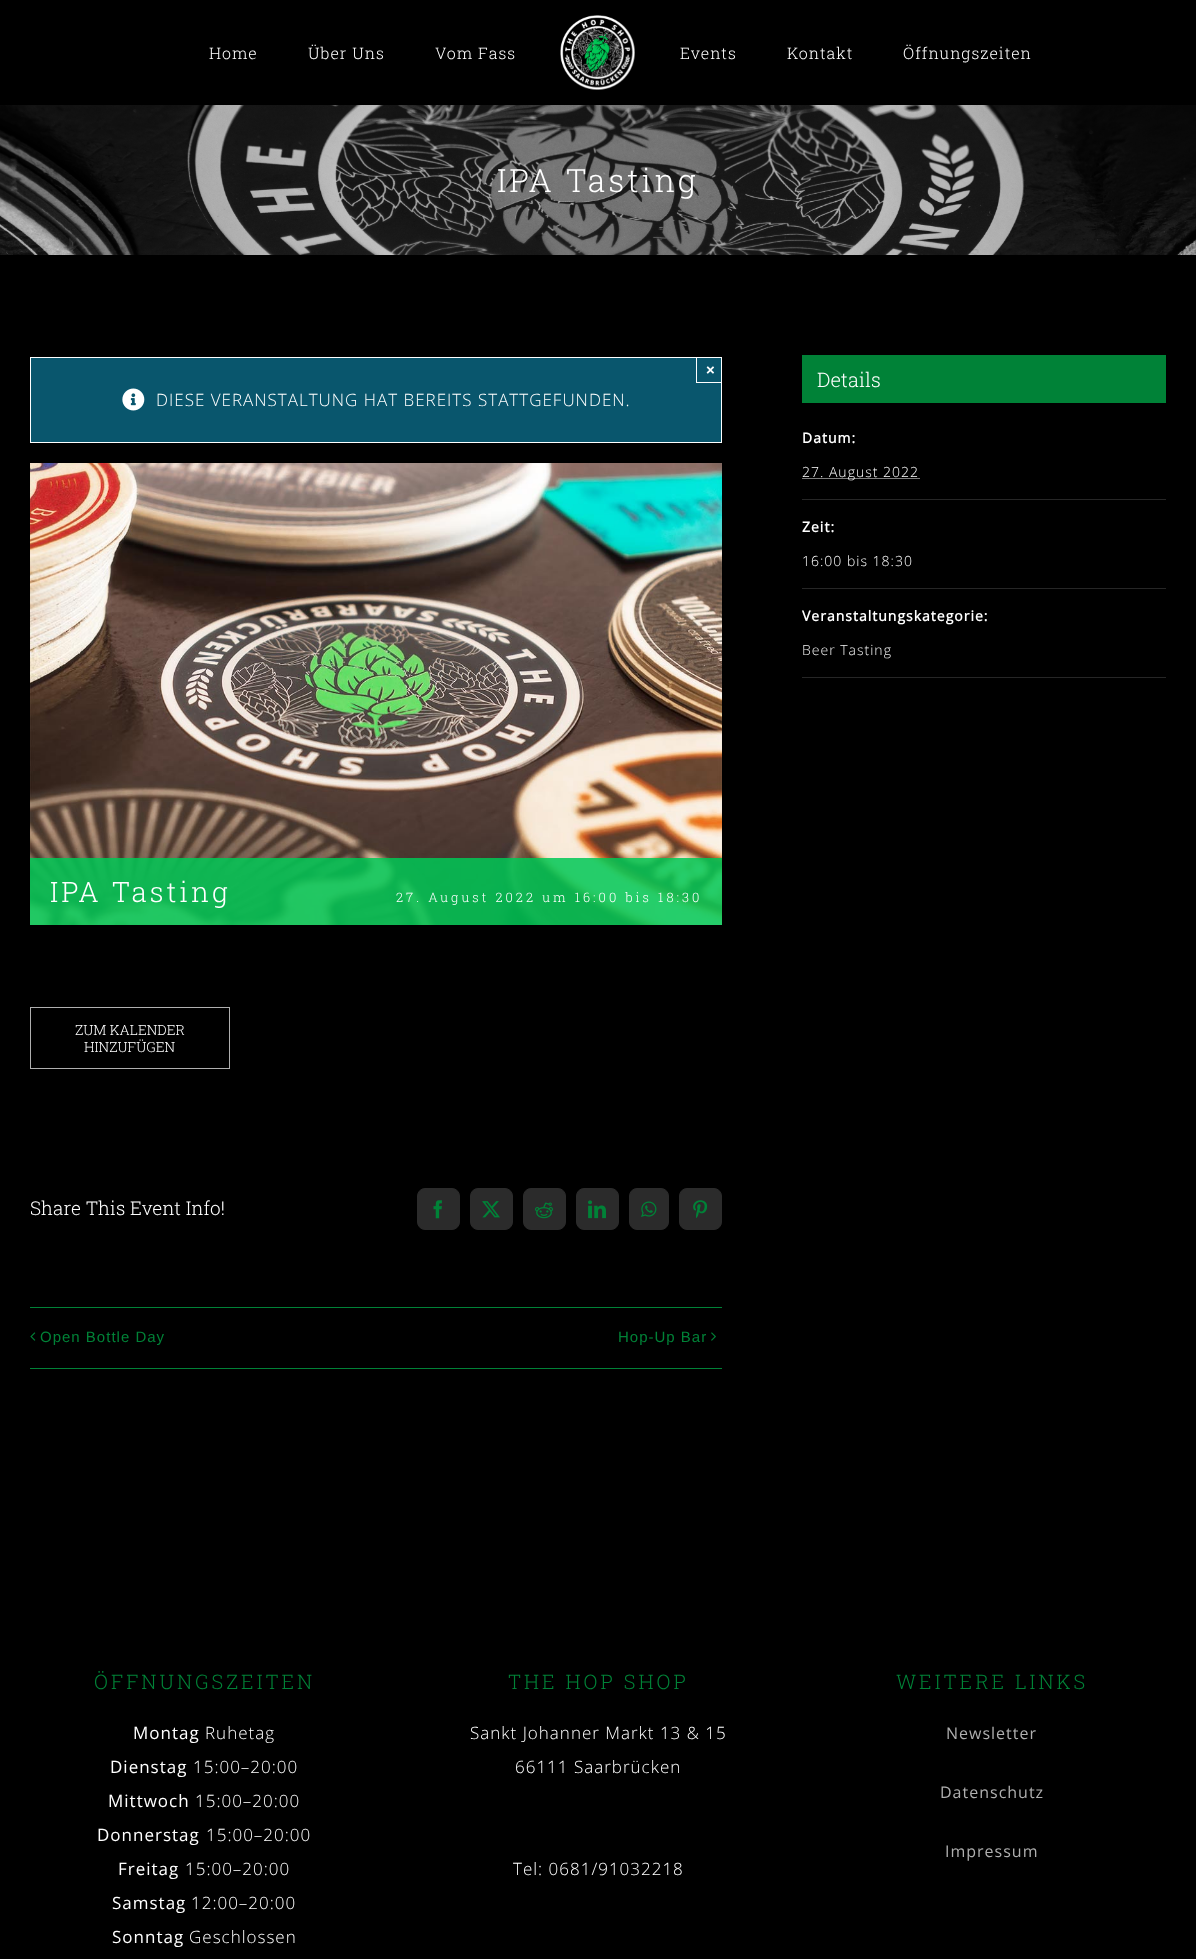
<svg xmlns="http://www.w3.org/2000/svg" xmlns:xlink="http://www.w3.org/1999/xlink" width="1196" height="1959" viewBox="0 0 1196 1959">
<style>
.cls-1{font:300 16px Roboto Slab;letter-spacing:1px;fill:#ffffff}
.cls-2{font:300 32px Roboto Slab;letter-spacing:3px;fill:#ffffff}
.cls-3{font:bold 15px Liberation Sans;fill:#ffffff}
.cls-4{font:300 17px Open Sans;letter-spacing:1px;fill:#ffffff}
.cls-5{font:300 28px Roboto Slab;letter-spacing:3px;fill:#ffffff}
.cls-6{font:300 13px Roboto Slab;letter-spacing:3px;fill:#ffffff}
.cls-7{font:300 14px Roboto Slab;fill:#ffffff}
.cls-8{font:300 19px Roboto Slab;fill:#ffffff}
.cls-9{font:15px Liberation Sans;letter-spacing:1px;fill:#008237}
.cls-10{font:300 20px Roboto Slab;fill:#ffffff}
.cls-11{font:bold 14px Open Sans;letter-spacing:1px;fill:#ffffff}
.cls-12{font:300 14px Open Sans;letter-spacing:1px;fill:#ffffff}
.cls-13{font:300 14px Open Sans;letter-spacing:1px;fill:#f2f2f2}
.cls-14{font:300 20px Roboto Slab;letter-spacing:3px;fill:#008237}
.cls-15{font:17px Open Sans;letter-spacing:1px;fill:#ffffff}
.cls-16{font:16px Open Sans;letter-spacing:1px;fill:#afafaf}
</style>
<rect width="100%" height="100%" fill="#000000"/>
<image xlink:href="image0.png" x="560" y="15" width="75" height="75"/>
<image xlink:href="image1.png" x="0" y="105" width="1196" height="150"/>
<rect fill="#09566d" stroke="#ffffff" x="30.5" y="357.5" width="691" height="85"/>
<rect fill="#ffffff" x="696" y="382" width="26" height="1"/>
<rect fill="#ffffff" x="696" y="357" width="1" height="26"/>
<image xlink:href="image2.png" x="122" y="388" width="23" height="23"/>
<image xlink:href="image3.png" x="30" y="463" width="692" height="462"/>
<rect fill="#00c856" fill-opacity="0.85" x="30" y="858" width="692" height="67"/>
<rect fill="none" stroke="#afafaf" x="30.5" y="1007.5" width="199" height="61"/>
<rect fill="#2b2b2b" stroke="#2b2b2b" x="417.5" y="1188.5" width="42" height="41" rx="7.5"/>
<image xlink:href="image4.png" x="433" y="1200" width="9" height="19"/>
<rect fill="#2b2b2b" stroke="#2b2b2b" x="470.5" y="1188.5" width="42" height="41" rx="7.5"/>
<image xlink:href="image5.png" x="482" y="1201" width="18" height="17"/>
<rect fill="#2b2b2b" stroke="#2b2b2b" x="523.5" y="1188.5" width="42" height="41" rx="7.5"/>
<image xlink:href="image6.png" x="535" y="1202" width="18" height="17"/>
<rect fill="#2b2b2b" stroke="#2b2b2b" x="576.5" y="1188.5" width="42" height="41" rx="7.5"/>
<image xlink:href="image7.png" x="588" y="1200" width="18" height="19"/>
<rect fill="#2b2b2b" stroke="#2b2b2b" x="629.5" y="1188.5" width="39" height="41" rx="7.5"/>
<image xlink:href="image8.png" x="641" y="1201" width="16" height="16"/>
<rect fill="#2b2b2b" stroke="#2b2b2b" x="679.5" y="1188.5" width="42" height="41" rx="7.5"/>
<image xlink:href="image9.png" x="693" y="1200" width="15" height="18"/>
<rect fill="#008237" x="30" y="1307" width="692" height="1"/>
<rect fill="#008237" x="30" y="1368" width="692" height="1"/>
<image xlink:href="image10.png" x="30" y="1332" width="6" height="9"/>
<image xlink:href="image11.png" x="711" y="1332" width="5" height="9"/>
<rect fill="#008237" x="802" y="355" width="364" height="48"/>
<rect fill="#262626" x="802" y="499" width="364" height="1"/>
<path fill="none" stroke="#ffffff" stroke-dasharray="1 1" d="M802.5 478.5H919.5"/>
<rect fill="#262626" x="802" y="588" width="364" height="1"/>
<rect fill="#262626" x="802" y="677" width="364" height="1"/>
<text class="cls-1" x="209" y="59">Home</text>
<text class="cls-1" x="308" y="59">Über Uns</text>
<text class="cls-1" x="435" y="59">Vom Fass</text>
<text class="cls-1" x="680" y="59">Events</text>
<text class="cls-1" x="787" y="59">Kontakt</text>
<text class="cls-1" x="903" y="59">Öffnungszeiten</text>
<text class="cls-2" x="497" y="192">IPA Tasting</text>
<text class="cls-3" x="706" y="375">×</text>
<text class="cls-4" x="156" y="406">DIESE VERANSTALTUNG HAT BEREITS STATTGEFUNDEN.</text>
<text class="cls-5" x="50" y="902">IPA Tasting</text>
<text class="cls-6" x="396" y="902">27. August 2022 um 16:00 bis 18:30</text>
<text class="cls-7" x="75" y="1035">ZUM KALENDER</text>
<text class="cls-7" x="84" y="1052">HINZUFÜGEN</text>
<text class="cls-8" x="30" y="1215">Share This Event Info!</text>
<text class="cls-9" x="40" y="1342">Open Bottle Day</text>
<text class="cls-9" x="618" y="1342">Hop-Up Bar</text>
<text class="cls-10" x="817" y="387">Details</text>
<text class="cls-11" x="802" y="443">Datum:</text>
<text class="cls-12" x="802" y="477">27. August 2022</text>
<text class="cls-11" x="802" y="532">Zeit:</text>
<text class="cls-12" x="802" y="566">16:00 bis 18:30</text>
<text class="cls-11" x="802" y="621">Veranstaltungskategorie:</text>
<text class="cls-13" x="802" y="655">Beer Tasting</text>
<text class="cls-14" x="94" y="1689">ÖFFNUNGSZEITEN</text>
<text class="cls-15" x="133" y="1739">Montag</text>
<text class="cls-4" x="205" y="1739">Ruhetag</text>
<text class="cls-15" x="110" y="1773">Dienstag</text>
<text class="cls-4" x="193" y="1773">15:00–20:00</text>
<text class="cls-15" x="108" y="1807">Mittwoch</text>
<text class="cls-4" x="195" y="1807">15:00–20:00</text>
<text class="cls-15" x="97" y="1841">Donnerstag</text>
<text class="cls-4" x="206" y="1841">15:00–20:00</text>
<text class="cls-15" x="118" y="1875">Freitag</text>
<text class="cls-4" x="185" y="1875">15:00–20:00</text>
<text class="cls-15" x="112" y="1909">Samstag</text>
<text class="cls-4" x="191" y="1909">12:00–20:00</text>
<text class="cls-15" x="112" y="1943">Sonntag</text>
<text class="cls-4" x="189" y="1943">Geschlossen</text>
<text class="cls-14" x="508" y="1689">THE HOP SHOP</text>
<text class="cls-4" x="470" y="1739">Sankt Johanner Markt 13 &amp; 15</text>
<text class="cls-4" x="515" y="1773">66111 Saarbrücken</text>
<text class="cls-4" x="513" y="1875">Tel: 0681/91032218</text>
<text class="cls-14" x="896" y="1689">WEITERE LINKS</text>
<text class="cls-16" x="946" y="1739">Newsletter</text>
<text class="cls-16" x="940" y="1798">Datenschutz</text>
<text class="cls-16" x="945" y="1857">Impressum</text>
</svg>
